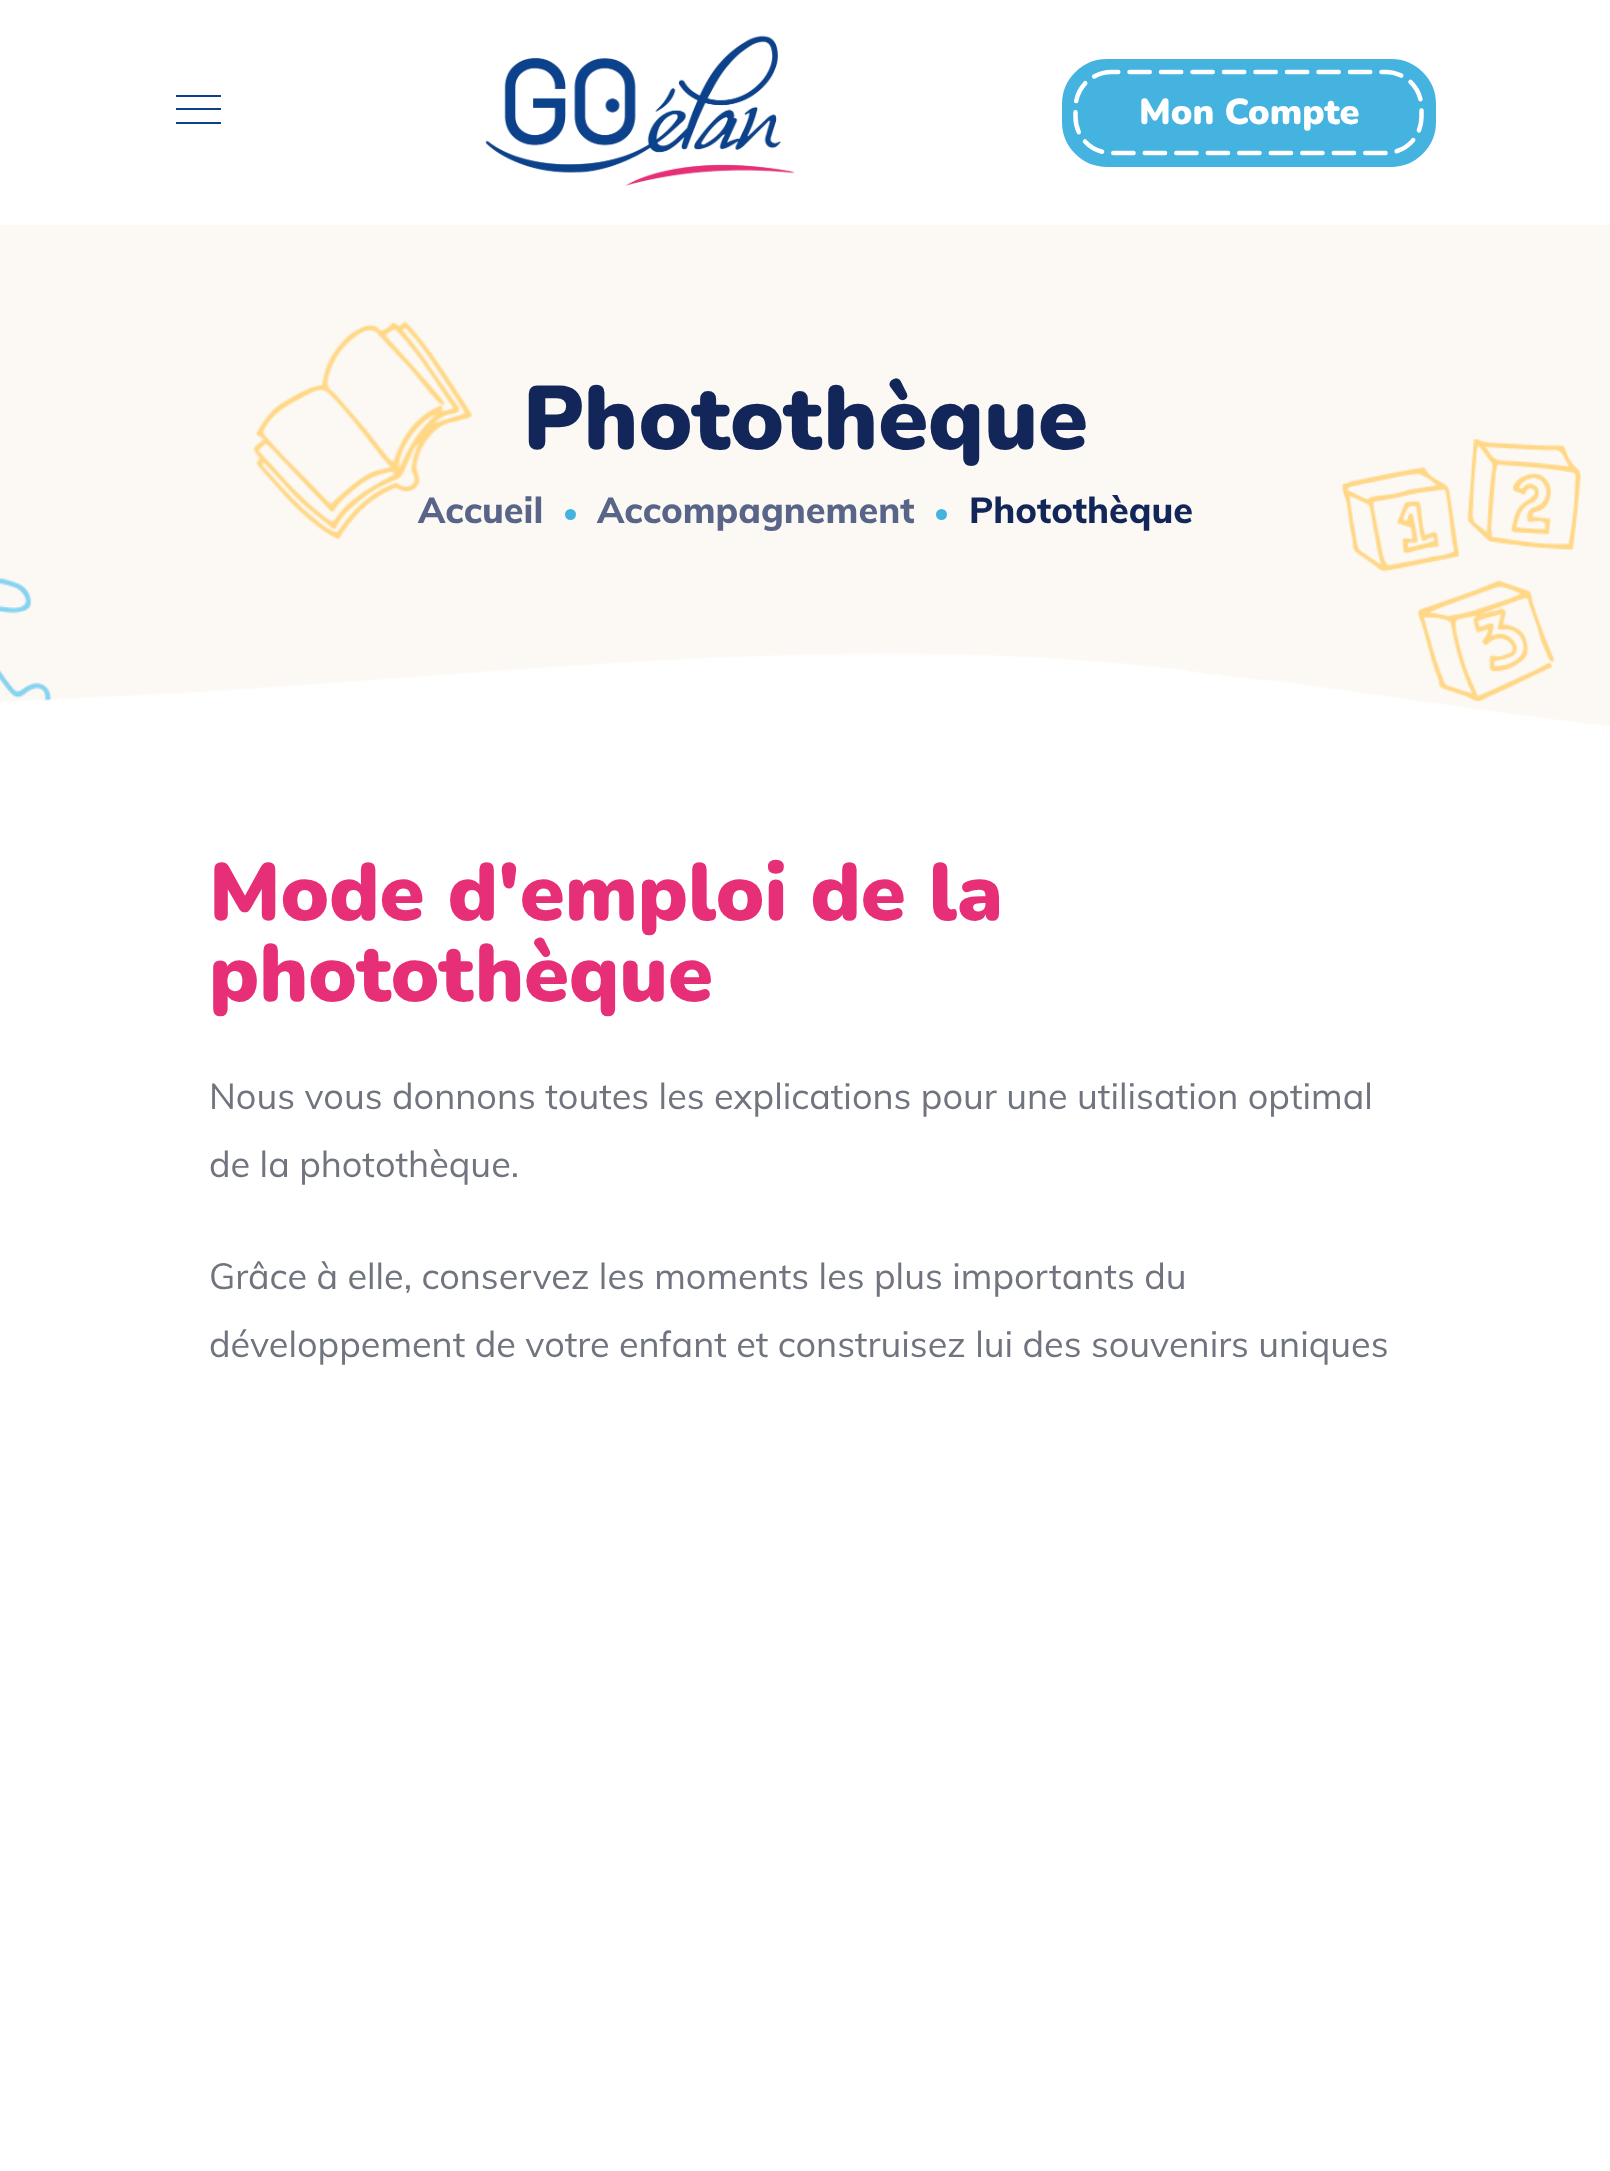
(async () => {
    const canvas = document.querySelector("canvas");
    canvas.width = 1610;
    canvas.height = 2171;
    const context = canvas.getContext("2d");
    context.miterLimit = 4;
    context.fontKerning = "normal";
    function write(s, x, y, font, color) {
        context.font = font;
        context.fillStyle = color;
        context.fillText(s, x, y);
    }
    function block(x, y, w, h, color) {
        context.fillStyle = color;
        context.fillRect(x, y, w, h);
    }
    async function photo(src, x, y, w, h) {
        const img = new Image();
        img.src = src;
        await img.decode();
        context.drawImage(img, x, y, w, h);
    }

    block(0, 0, 1610, 2171, "rgb(255, 255, 255)");
    block(176, 95, 45, 2, "rgb(12, 66, 140)");
    block(176, 108, 45, 2, "rgb(12, 66, 140)");
    block(176, 122, 45, 2, "rgb(12, 66, 140)");
    await photo("media/1.png", 485, 35, 310, 151);
    context.fillStyle = "rgb(69, 179, 223)";
    context.beginPath();
    context.roundRect(1063, 60, 372, 106, 44);
    context.fill();
    context.strokeStyle = "rgb(69, 179, 223)";
    context.lineWidth = 2;
    context.stroke();
    context.beginPath();
    context.moveTo(1111.5, 72);
    context.lineTo(1385.5, 72);
    context.bezierCurveTo(1405.5, 72, 1421.5, 88, 1421.5, 108);
    context.lineTo(1421.5, 117);
    context.bezierCurveTo(1421.5, 137, 1405.5, 153, 1385.5, 153);
    context.lineTo(1111.5, 153);
    context.bezierCurveTo(1091.5, 153, 1075.5, 137, 1075.5, 117);
    context.lineTo(1075.5, 108);
    context.bezierCurveTo(1075.5, 88, 1091.5, 72, 1111.5, 72);
    context.closePath();
    context.strokeStyle = "rgb(255, 255, 255)";
    context.lineWidth = 4.5;
    context.lineCap = "round";
    context.setLineDash([20.25, 11.25]);
    context.lineDashOffset = 2250;
    context.stroke();
    write("Mon Compte", 1139, 124, "900 36px Nunito", "rgb(255, 255, 255)");
    await photo("media/2.png", 0, 225, 1610, 501);
    await photo("media/3.png", 252, 321, 221, 219);
    write("Photothèque", 523, 449, "900 90px Nunito", "rgb(18, 38, 90)");
    write("Accueil", 418, 523, "800 36px Muli", "rgb(88, 101, 136)");
    context.fillStyle = "rgb(69, 179, 223)";
    context.beginPath();
    context.arc(570.5, 514.5, 5.5, 0, Math.PI * 2);
    context.fill();
    write("Accompagnement", 597, 523, "800 36px Muli", "rgb(88, 101, 136)");
    context.fillStyle = "rgb(69, 179, 223)";
    context.beginPath();
    context.arc(941.5, 514.5, 5.5, 0, Math.PI * 2);
    context.fill();
    write("Photothèque", 969, 523, "800 36px Muli", "rgb(18, 38, 90)");
    write("Mode d'emploi de la", 209, 920, "900 81px Nunito", "rgb(231, 47, 119)");
    write("photothèque", 209, 1001, "900 81px Nunito", "rgb(231, 47, 119)");
    write("Nous vous donnons toutes les explications pour une utilisation optimal", 209, 1109, "36px Muli", "rgb(112, 116, 127)");
    write("de la photothèque.", 209, 1177, "36px Muli", "rgb(112, 116, 127)");
    write("Grâce à elle, conservez les moments les plus importants du", 209, 1289, "36px Muli", "rgb(112, 116, 127)");
    write("développement de votre enfant et construisez lui des souvenirs uniques", 209, 1357, "36px Muli", "rgb(112, 116, 127)");
})();
